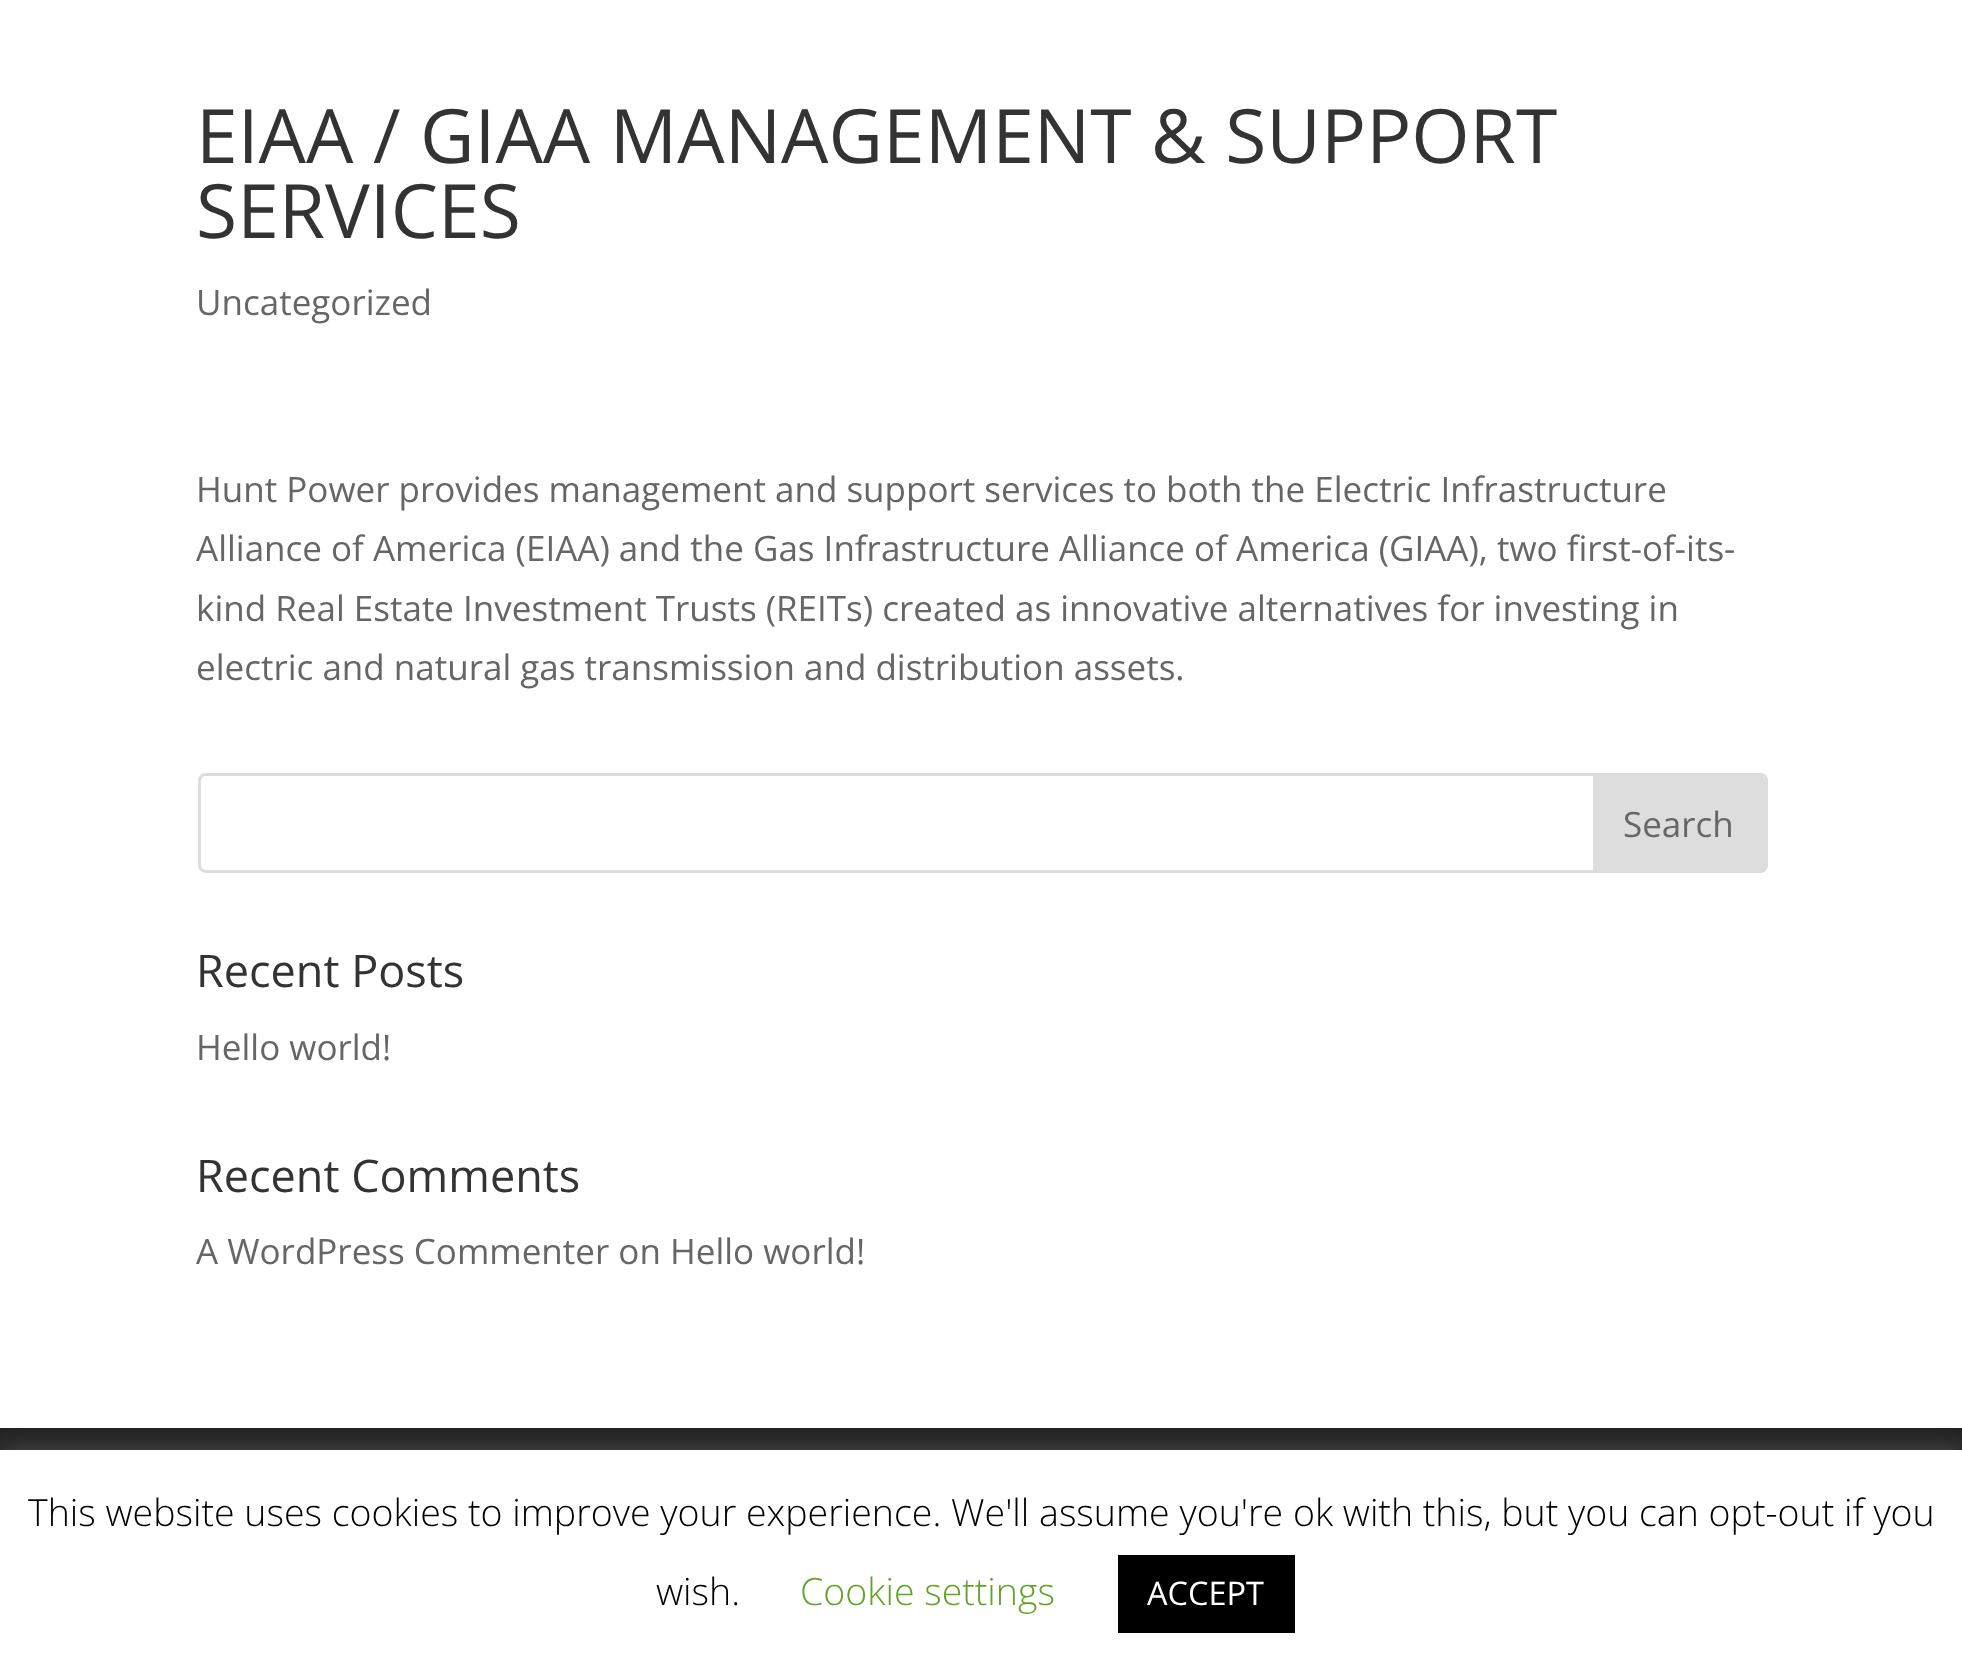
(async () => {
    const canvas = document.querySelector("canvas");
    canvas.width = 1962;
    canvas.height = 1675;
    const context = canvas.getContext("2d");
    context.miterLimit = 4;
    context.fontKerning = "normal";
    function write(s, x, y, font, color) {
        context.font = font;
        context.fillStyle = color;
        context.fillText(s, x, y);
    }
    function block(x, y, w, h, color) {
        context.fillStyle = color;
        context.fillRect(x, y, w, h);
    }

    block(0, 0, 1962, 1675, "rgb(255, 255, 255)");
    write("EIAA / GIAA MANAGEMENT & SUPPORT", 196, 163, "75px Open Sans", "rgb(51, 51, 51)");
    write("SERVICES", 196, 238, "75px Open Sans", "rgb(51, 51, 51)");
    write("Uncategorized", 196, 315, "35px Open Sans", "rgb(102, 102, 102)");
    write("Hunt Power provides management and support services to both the Electric Infrastructure", 196, 502, "35px Open Sans", "rgb(102, 102, 102)");
    write("Alliance of America (EIAA) and the Gas Infrastructure Alliance of America (GIAA), two first-of-its-", 196, 561, "35px Open Sans", "rgb(102, 102, 102)");
    write("kind Real Estate Investment Trusts (REITs) created as innovative alternatives for investing in", 196, 621, "35px Open Sans", "rgb(102, 102, 102)");
    write("electric and natural gas transmission and distribution assets.", 196, 680, "35px Open Sans", "rgb(102, 102, 102)");
    context.beginPath();
    context.roundRect(199.5, 774.5, 1567, 97, 6.5);
    context.strokeStyle = "rgb(221, 221, 221)";
    context.lineWidth = 3;
    context.stroke();
    context.fillStyle = "rgb(221, 221, 221)";
    context.beginPath();
    context.roundRect(1594.5, 774.5, 172, 97, [0, 6.5, 6.5, 0]);
    context.fill();
    context.stroke();
    write("Search", 1623, 837, "35px Open Sans", "rgb(102, 102, 102)");
    write("Recent Posts", 196, 987, "45px Open Sans", "rgb(51, 51, 51)");
    write("Hello world!", 196, 1060, "35px Open Sans", "rgb(102, 102, 102)");
    write("Recent Comments", 196, 1192, "45px Open Sans", "rgb(51, 51, 51)");
    write("A WordPress Commenter on Hello world!", 196, 1264, "35px Open Sans", "rgb(102, 102, 102)");
    block(0, 1428, 1962, 22, "rgb(34, 34, 34)");
    context.fillStyle = "rgba(172, 171, 171, 0.3)";
    context.filter = "blur(12.5px)";
    context.beginPath();
    context.rect(0, 1448, 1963, 225);
    context.fill();
    context.filter = "none";
    block(0, 1450, 1962, 225, "rgb(255, 255, 255)");
    write("This website uses cookies to improve your experience. We'll assume you're ok with this, but you can opt-out if you", 28, 1526, "300 37.5px Open Sans", "rgb(0, 0, 0)");
    write("wish.", 656, 1605, "300 37.5px Open Sans", "rgb(0, 0, 0)");
    write("Cookie settings", 800, 1605, "300 37.5px Open Sans", "rgb(98, 163, 41)");
    block(1118, 1555, 177, 78, "rgb(0, 0, 0)");
    write("ACCEPT", 1147, 1605, "32.5px Open Sans", "rgb(255, 255, 255)");
})();
